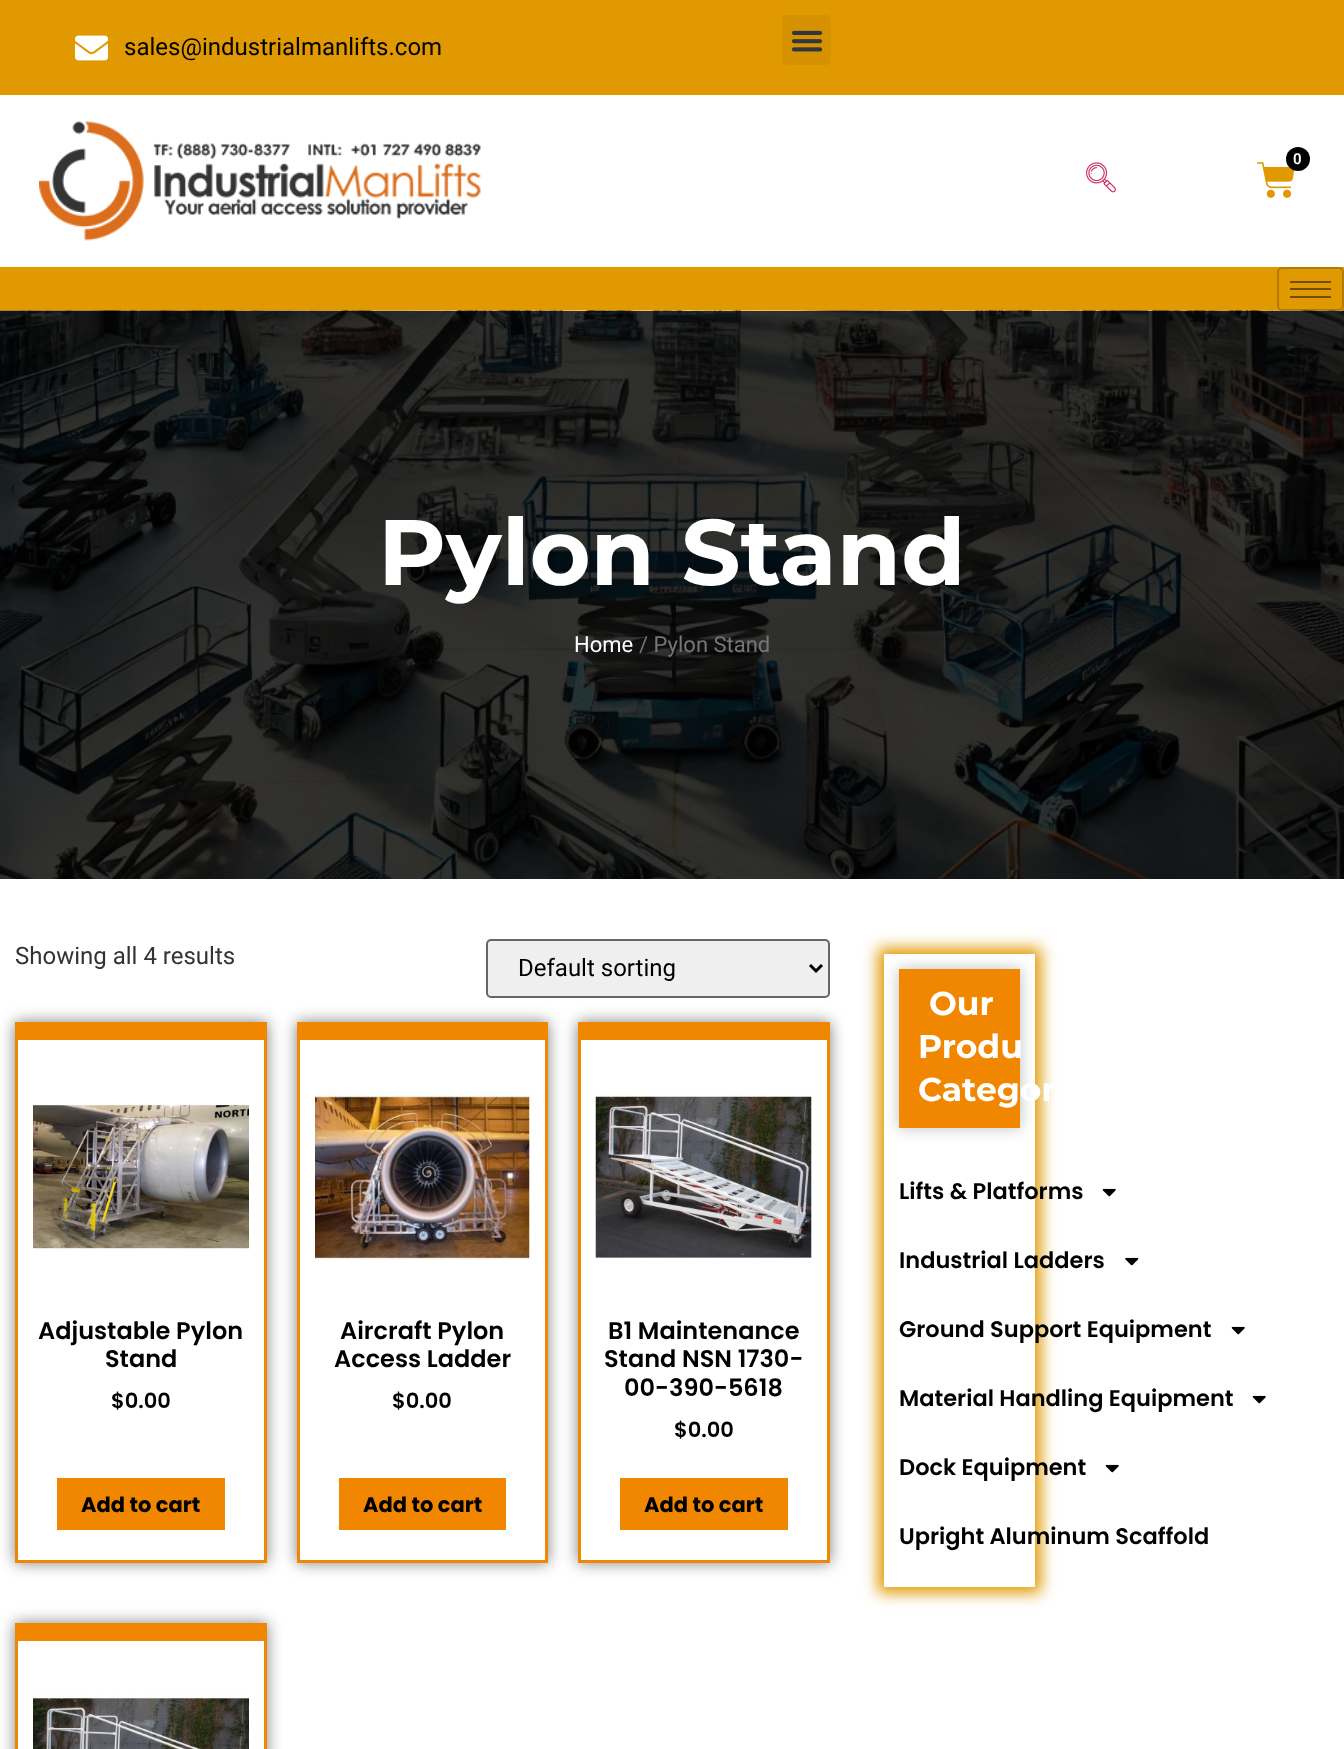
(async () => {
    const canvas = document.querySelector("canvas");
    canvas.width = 1344;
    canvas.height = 1749;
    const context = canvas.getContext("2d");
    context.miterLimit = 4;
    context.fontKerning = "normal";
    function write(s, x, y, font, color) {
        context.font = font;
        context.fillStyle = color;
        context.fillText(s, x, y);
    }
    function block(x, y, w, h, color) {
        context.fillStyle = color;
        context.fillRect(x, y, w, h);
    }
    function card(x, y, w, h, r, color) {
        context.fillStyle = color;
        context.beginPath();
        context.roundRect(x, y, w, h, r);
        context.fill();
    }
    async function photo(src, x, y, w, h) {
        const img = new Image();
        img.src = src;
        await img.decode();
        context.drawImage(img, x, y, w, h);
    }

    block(0, 0, 1344, 1749, "rgb(255, 255, 255)");
    block(0, 0, 1344, 95, "rgb(224, 153, 0)");
    await photo("media/1.png", 75, 35, 33, 26);
    write("sales@industrialmanlifts.com", 124, 55, "24px Roboto", "rgb(0, 0, 0)");
    card(782, 15, 49, 50, 5, "rgb(213, 145, 0)");
    await photo("media/2.png", 791, 30, 32, 22);
    await photo("media/3.png", 39, 121, 442, 120);
    await photo("media/4.png", 1257, 162, 38, 36);
    context.fillStyle = "rgb(0, 0, 0)";
    context.beginPath();
    context.arc(1298, 159, 12, 0, Math.PI * 2);
    context.fill();
    write("0", 1293, 164, "600 15px Roboto", "rgb(255, 255, 255)");
    await photo("media/5.png", 1086, 162, 30, 31);
    block(0, 267, 1344, 44, "rgb(224, 153, 0)");
    await photo("media/6.png", 0, 310, 1344, 569);
    context.beginPath();
    context.roundRect(1278, 268, 65, 42, 4);
    context.strokeStyle = "rgba(0, 0, 0, 0.2)";
    context.lineWidth = 2;
    context.stroke();
    block(1290, 281, 41, 2, "rgb(112, 77, 0)");
    block(1290, 288, 41, 2, "rgb(112, 77, 0)");
    block(1290, 296, 41, 2, "rgb(112, 77, 0)");
    write("Pylon Stand", 378, 585, "bold 93px Montserrat", "rgb(255, 255, 255)");
    write("Home", 574, 652, "22px Roboto", "rgb(255, 255, 255)");
    write("/ Pylon Stand", 639, 652, "22px Roboto", "rgb(118, 118, 118)");
    write("Showing all 4 results", 15, 964, "24px Roboto", "rgb(51, 51, 51)");
    context.fillStyle = "rgb(239, 239, 239)";
    context.beginPath();
    context.roundRect(487, 940, 342, 57, 4);
    context.fill();
    context.strokeStyle = "rgb(102, 102, 102)";
    context.stroke();
    context.beginPath();
    context.moveTo(810, 965);
    context.lineTo(816, 971);
    context.lineTo(822, 965);
    context.strokeStyle = "rgb(0, 0, 0)";
    context.lineWidth = 3;
    context.stroke();
    write("Default sorting", 518, 976, "24px Roboto", "rgb(0, 0, 0)");
    context.save();
    context.beginPath();
    context.moveTo(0, 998);
    context.lineTo(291, 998);
    context.lineTo(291, 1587);
    context.lineTo(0, 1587);
    context.closePath();
    context.moveTo(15, 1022);
    context.lineTo(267, 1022);
    context.lineTo(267, 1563);
    context.lineTo(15, 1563);
    context.closePath();
    context.clip("evenodd");
    context.fillStyle = "rgba(0, 0, 0, 0.5)";
    context.filter = "blur(7.5px)";
    context.beginPath();
    context.rect(15, 1022, 252, 541);
    context.fill();
    context.filter = "none";
    context.restore();
    block(18, 1022, 246, 18, "rgb(241, 135, 0)");
    block(264, 1022, 3, 541, "rgb(241, 135, 0)");
    block(15, 1560, 252, 3, "rgb(241, 135, 0)");
    block(15, 1022, 3, 541, "rgb(241, 135, 0)");
    await photo("media/7.png", 33, 1104, 216, 148);
    write("Adjustable Pylon", 38, 1339, "600 24px Poppins", "rgb(0, 0, 0)");
    write("Stand", 105, 1367, "600 24px Poppins", "rgb(0, 0, 0)");
    write("$0.00", 111, 1408, "600 21px Poppins", "rgb(0, 0, 0)");
    block(57, 1478, 168, 52, "rgb(241, 135, 0)");
    write("Add to cart", 81, 1512, "bold 21px Poppins", "rgb(0, 0, 0)");
    context.save();
    context.beginPath();
    context.moveTo(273, 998);
    context.lineTo(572, 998);
    context.lineTo(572, 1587);
    context.lineTo(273, 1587);
    context.closePath();
    context.moveTo(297, 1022);
    context.lineTo(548, 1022);
    context.lineTo(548, 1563);
    context.lineTo(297, 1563);
    context.closePath();
    context.clip("evenodd");
    context.fillStyle = "rgba(0, 0, 0, 0.5)";
    context.filter = "blur(7.5px)";
    context.beginPath();
    context.rect(297, 1022, 251, 541);
    context.fill();
    context.filter = "none";
    context.restore();
    block(300, 1022, 245, 18, "rgb(241, 135, 0)");
    block(545, 1022, 3, 541, "rgb(241, 135, 0)");
    block(297, 1560, 251, 3, "rgb(241, 135, 0)");
    block(297, 1022, 3, 541, "rgb(241, 135, 0)");
    await photo("media/8.png", 315, 1090, 215, 170);
    write("Aircraft Pylon", 340, 1339, "600 24px Poppins", "rgb(0, 0, 0)");
    write("Access Ladder", 334, 1367, "600 24px Poppins", "rgb(0, 0, 0)");
    write("$0.00", 392, 1408, "600 21px Poppins", "rgb(0, 0, 0)");
    block(339, 1478, 167, 52, "rgb(241, 135, 0)");
    write("Add to cart", 363, 1512, "bold 21px Poppins", "rgb(0, 0, 0)");
    context.save();
    context.beginPath();
    context.moveTo(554, 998);
    context.lineTo(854, 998);
    context.lineTo(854, 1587);
    context.lineTo(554, 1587);
    context.closePath();
    context.moveTo(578, 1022);
    context.lineTo(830, 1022);
    context.lineTo(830, 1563);
    context.lineTo(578, 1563);
    context.closePath();
    context.clip("evenodd");
    context.fillStyle = "rgba(0, 0, 0, 0.5)";
    context.filter = "blur(7.5px)";
    context.beginPath();
    context.rect(578, 1022, 252, 541);
    context.fill();
    context.filter = "none";
    context.restore();
    block(581, 1022, 246, 18, "rgb(241, 135, 0)");
    block(827, 1022, 3, 541, "rgb(241, 135, 0)");
    block(578, 1560, 252, 3, "rgb(241, 135, 0)");
    block(578, 1022, 3, 541, "rgb(241, 135, 0)");
    await photo("media/9.png", 595, 1093, 217, 165);
    write("B1 Maintenance", 608, 1339, "600 24px Poppins", "rgb(0, 0, 0)");
    write("Stand NSN 1730-", 604, 1367, "600 24px Poppins", "rgb(0, 0, 0)");
    write("00-390-5618", 624, 1396, "600 24px Poppins", "rgb(0, 0, 0)");
    write("$0.00", 674, 1437, "600 21px Poppins", "rgb(0, 0, 0)");
    block(620, 1478, 168, 52, "rgb(241, 135, 0)");
    write("Add to cart", 644, 1512, "bold 21px Poppins", "rgb(0, 0, 0)");
    context.save();
    context.beginPath();
    context.moveTo(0, 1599);
    context.lineTo(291, 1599);
    context.lineTo(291, 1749);
    context.lineTo(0, 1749);
    context.closePath();
    context.moveTo(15, 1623);
    context.lineTo(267, 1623);
    context.lineTo(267, 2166);
    context.lineTo(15, 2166);
    context.closePath();
    context.clip("evenodd");
    context.fillStyle = "rgba(0, 0, 0, 0.5)";
    context.filter = "blur(7.5px)";
    context.beginPath();
    context.rect(15, 1623, 252, 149);
    context.fill();
    context.filter = "none";
    context.restore();
    block(18, 1623, 246, 18, "rgb(241, 135, 0)");
    block(264, 1623, 3, 126, "rgb(241, 135, 0)");
    block(15, 1623, 3, 126, "rgb(241, 135, 0)");
    await photo("media/10.png", 33, 1694, 216, 55);
    context.save();
    context.beginPath();
    context.moveTo(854, 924);
    context.lineTo(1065, 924);
    context.lineTo(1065, 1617);
    context.lineTo(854, 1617);
    context.closePath();
    context.moveTo(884, 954);
    context.lineTo(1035, 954);
    context.lineTo(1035, 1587);
    context.lineTo(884, 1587);
    context.closePath();
    context.clip("evenodd");
    context.fillStyle = "rgb(224, 153, 0)";
    context.filter = "blur(7.5px)";
    context.beginPath();
    context.rect(878, 948, 163, 645);
    context.fill();
    context.filter = "none";
    context.restore();
    context.fillStyle = "rgba(0, 0, 0, 0.25)";
    context.filter = "blur(7.5px)";
    context.beginPath();
    context.rect(899, 969, 121, 159);
    context.fill();
    context.filter = "none";
    block(899, 969, 121, 159, "rgb(241, 135, 0)");
    write("Our", 929, 1015, "bold 33px Montserrat", "rgb(255, 255, 255)");
    write("Produ", 918, 1058, "bold 33px Montserrat", "rgb(255, 255, 255)");
    write("Categor", 918, 1101, "bold 33px Montserrat", "rgb(255, 255, 255)");
    write("Lifts & Platforms", 899, 1199, "600 22.5px Poppins", "rgb(0, 0, 0)");
    await photo("media/11.png", 1102, 1188, 14, 9);
    write("Industrial Ladders", 899, 1268, "600 22.5px Poppins", "rgb(0, 0, 0)");
    await photo("media/12.png", 1125, 1257, 14, 9);
    write("Ground Support Equipment", 899, 1337, "600 22.5px Poppins", "rgb(0, 0, 0)");
    await photo("media/11.png", 1231, 1326, 14, 9);
    write("Material Handling Equipment", 899, 1406, "600 22.5px Poppins", "rgb(0, 0, 0)");
    await photo("media/11.png", 1252, 1395, 14, 9);
    write("Dock Equipment", 899, 1475, "600 22.5px Poppins", "rgb(0, 0, 0)");
    await photo("media/11.png", 1105, 1464, 14, 9);
    write("Upright Aluminum Scaffold", 899, 1544, "600 22.5px Poppins", "rgb(0, 0, 0)");
})();
